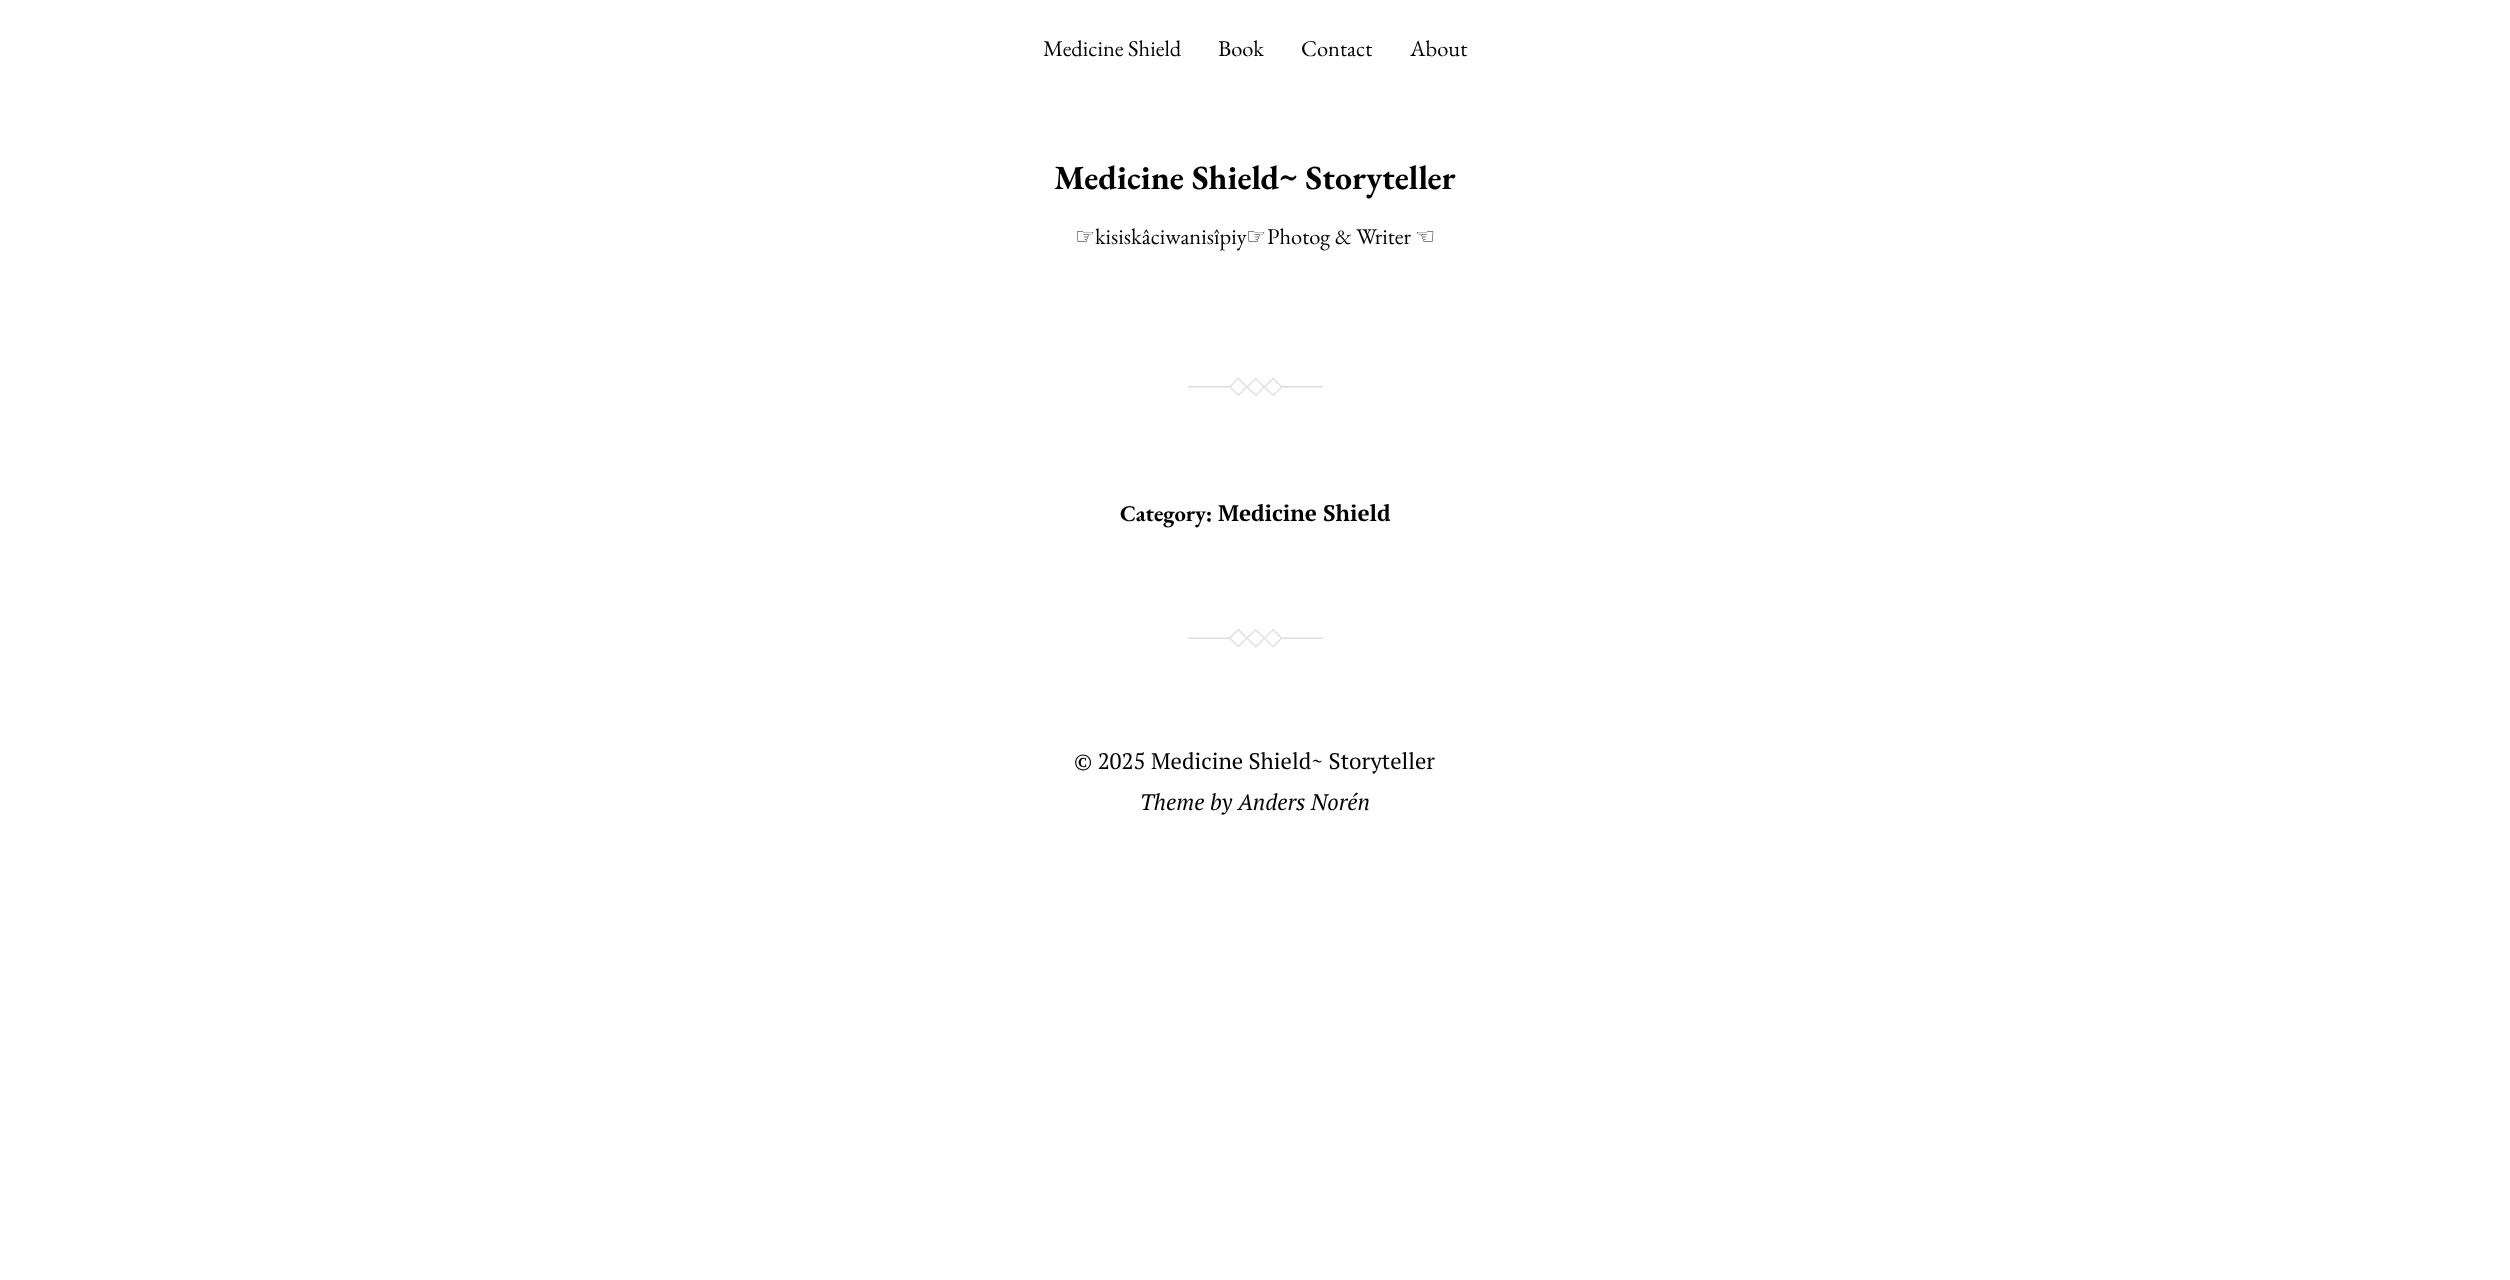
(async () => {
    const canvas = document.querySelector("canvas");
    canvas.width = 2510;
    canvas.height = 1280;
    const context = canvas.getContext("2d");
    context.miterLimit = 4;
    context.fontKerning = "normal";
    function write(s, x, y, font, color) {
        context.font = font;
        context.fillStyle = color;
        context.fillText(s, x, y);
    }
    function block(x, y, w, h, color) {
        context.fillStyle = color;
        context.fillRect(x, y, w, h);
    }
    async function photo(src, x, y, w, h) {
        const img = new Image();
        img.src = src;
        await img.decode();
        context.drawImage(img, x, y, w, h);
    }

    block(0, 0, 2510, 1280, "rgb(255, 255, 255)");
    write("Medicine Shield", 1043, 56, "22.5px EB Garamond", "rgb(0, 0, 0)");
    write("Book", 1218, 56, "22.5px EB Garamond", "rgb(0, 0, 0)");
    write("Contact", 1301, 56, "22.5px EB Garamond", "rgb(0, 0, 0)");
    write("About", 1410, 56, "22.5px EB Garamond", "rgb(0, 0, 0)");
    write("Medicine Shield~ Storyteller", 1054, 189, "bold 33.75px EB Garamond", "rgb(0, 0, 0)");
    write("☞", 1075, 244, "22.5px DejaVu Sans", "rgb(0, 0, 0)");
    write("kisiskâciwanisîpiy", 1095, 244, "22.5px EB Garamond", "rgb(0, 0, 0)");
    write("☞", 1246, 244, "22.5px DejaVu Sans", "rgb(0, 0, 0)");
    write("Photog & Writer", 1267, 244, "22.5px EB Garamond", "rgb(0, 0, 0)");
    write("☜", 1415, 244, "22.5px DejaVu Sans", "rgb(0, 0, 0)");
    await photo("media/1.png", 1188, 377, 135, 19);
    write("Category:", 1120, 521, "bold 22.5px EB Garamond", "rgb(0, 0, 0)");
    write("Medicine Shield", 1218, 521, "bold 22.5px PT Serif", "rgb(0, 0, 0)");
    await photo("media/2.png", 1188, 628, 135, 20);
    write("© 2025 Medicine Shield~ Storyteller", 1074, 769, "22.5px PT Serif", "rgb(0, 0, 0)");
    write("Theme by", 1140, 810, "italic 22.5px PT Serif", "rgb(0, 0, 0)");
    write("Anders Norén", 1238, 810, "italic 22.5px PT Serif", "rgb(0, 0, 0)");
})();
